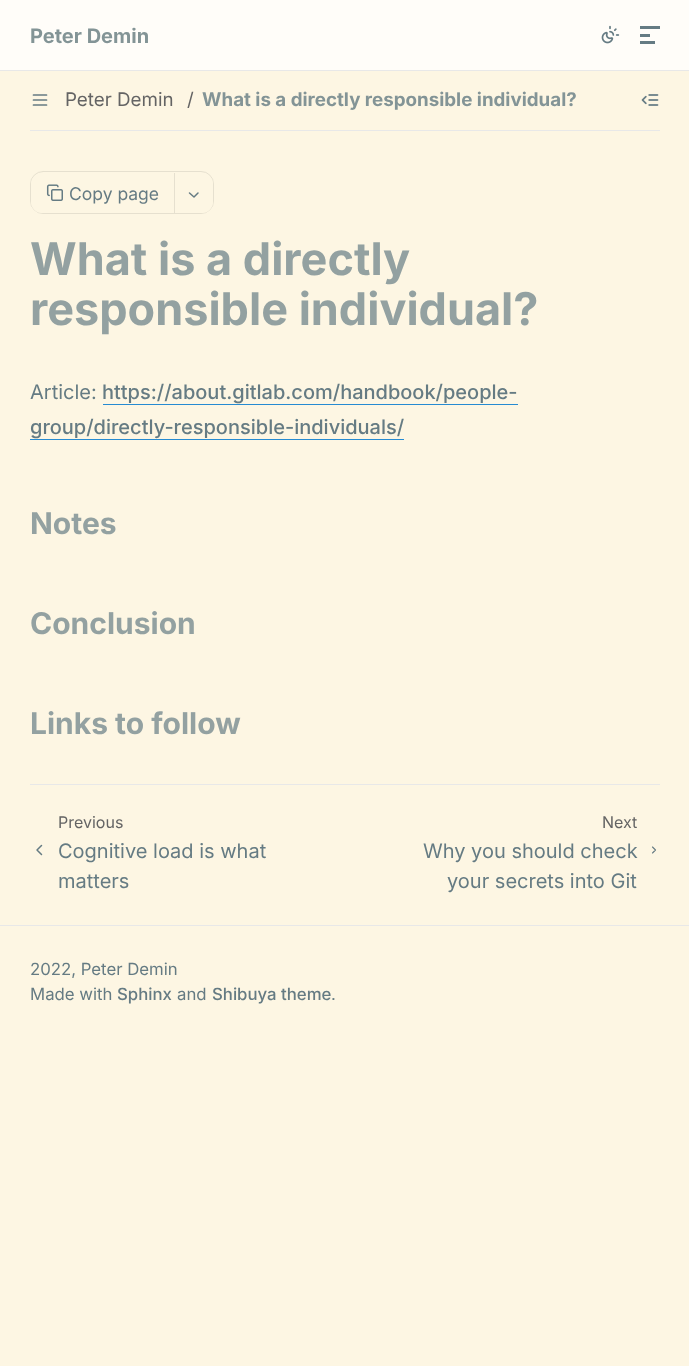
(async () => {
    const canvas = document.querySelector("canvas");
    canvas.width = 689;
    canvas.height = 1366;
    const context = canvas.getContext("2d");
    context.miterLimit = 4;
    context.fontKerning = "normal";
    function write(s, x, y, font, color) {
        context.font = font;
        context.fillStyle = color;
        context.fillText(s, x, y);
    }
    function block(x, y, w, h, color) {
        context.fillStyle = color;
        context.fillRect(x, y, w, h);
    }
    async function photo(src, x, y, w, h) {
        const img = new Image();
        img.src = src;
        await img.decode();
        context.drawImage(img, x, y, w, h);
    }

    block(0, 0, 689, 1366, "rgb(253, 246, 227)");
    block(0, 70, 689, 1, "rgb(232, 232, 232)");
    block(0, 0, 689, 70, "rgb(255, 253, 249)");
    write("Peter Demin", 30, 43, "bold 20px Inter", "rgb(131, 148, 150)");
    await photo("media/1.png", 601, 25, 19, 19);
    block(640, 26, 20, 3, "rgb(101, 123, 131)");
    block(640, 34, 10, 3, "rgb(101, 123, 131)");
    block(640, 41, 15, 3, "rgb(101, 123, 131)");
    block(30, 130, 630, 1, "rgb(232, 232, 232)");
    context.beginPath();
    context.moveTo(33.5, 100);
    context.lineTo(46.5, 100);
    context.moveTo(33.5, 95);
    context.lineTo(46.5, 95);
    context.moveTo(33.5, 105);
    context.lineTo(46.5, 105);
    context.strokeStyle = "rgb(101, 123, 131)";
    context.lineWidth = 1.7;
    context.lineCap = "round";
    context.lineJoin = "round";
    context.stroke();
    write("Peter Demin", 65, 106, "18.75px Inter", "rgb(100, 100, 100)");
    write("/", 187, 106, "18.75px Inter", "rgb(100, 100, 100)");
    write("What is a directly responsible individual?", 202, 106, "bold 18.75px Inter", "rgb(131, 148, 150)");
    await photo("media/2.png", 641, 94, 18, 12);
    context.beginPath();
    context.roundRect(30.5, 171.5, 183, 42, 12.5);
    context.strokeStyle = "rgb(230, 224, 207)";
    context.lineWidth = 1;
    context.lineJoin = "miter";
    context.stroke();
    context.fillStyle = "rgb(253, 246, 227)";
    context.beginPath();
    context.roundRect(31, 173, 143, 40, [11, 0, 0, 11]);
    context.fill();
    await photo("media/3.png", 46, 184, 17, 17);
    write("Copy page", 69, 200, "17.5px Inter", "rgb(101, 123, 131)");
    context.fillStyle = "rgb(253, 246, 227)";
    context.beginPath();
    context.roundRect(174, 173, 39, 40, [0, 11, 11, 0]);
    context.fill();
    block(174, 173, 1, 40, "rgb(230, 224, 207)");
    context.beginPath();
    context.moveTo(189.5, 193);
    context.lineTo(194, 197);
    context.lineTo(198, 193);
    context.strokeStyle = "rgb(101, 123, 131)";
    context.lineWidth = 1.5;
    context.lineJoin = "round";
    context.stroke();
    write("What is a directly", 30, 275, "bold 45px Inter", "rgb(147, 161, 161)");
    write("responsible individual?", 30, 325, "bold 45px Inter", "rgb(147, 161, 161)");
    write("Article:", 30, 399, "20px Inter", "rgb(101, 123, 131)");
    write("https://about.gitlab.com/handbook/people-", 102, 399, "500 20px Inter", "rgb(101, 123, 131)");
    block(103, 404, 415, 1, "rgb(38, 139, 210)");
    write("group/directly-responsible-individuals/", 30, 434, "500 20px Inter", "rgb(101, 123, 131)");
    block(30, 439, 374, 1, "rgb(38, 139, 210)");
    write("Notes", 30, 534, "bold 30px Inter", "rgb(147, 161, 161)");
    write("Conclusion", 30, 634, "bold 30px Inter", "rgb(147, 161, 161)");
    write("Links to follow", 30, 734, "bold 30px Inter", "rgb(147, 161, 161)");
    block(30, 784, 630, 1, "rgb(232, 232, 232)");
    context.beginPath();
    context.moveTo(41.5, 854.5);
    context.lineTo(37, 850);
    context.lineTo(41.5, 845.5);
    context.stroke();
    write("Previous", 58, 828, "16px Inter", "rgb(100, 100, 100)");
    write("Cognitive load is what", 58, 858, "20px Inter", "rgb(101, 123, 131)");
    write("matters", 58, 888, "20px Inter", "rgb(101, 123, 131)");
    write("Next", 602, 828, "16px Inter", "rgb(100, 100, 100)");
    write("Why you should check", 423, 858, "20px Inter", "rgb(101, 123, 131)");
    write("your secrets into Git", 447, 888, "20px Inter", "rgb(101, 123, 131)");
    context.beginPath();
    context.moveTo(652.5, 853);
    context.lineTo(655.5, 850);
    context.lineTo(652.5, 847);
    context.lineWidth = 1.1;
    context.stroke();
    block(0, 925, 689, 1, "rgb(232, 232, 232)");
    write("2022, Peter Demin", 30, 975, "16.75px Inter", "rgb(101, 123, 131)");
    write("Made with", 30, 1000, "16.75px Inter", "rgb(101, 123, 131)");
    write("Sphinx", 117, 1000, "500 16.75px Inter", "rgb(101, 123, 131)");
    write("and", 177, 1000, "16.75px Inter", "rgb(101, 123, 131)");
    write("Shibuya theme", 212, 1000, "500 16.75px Inter", "rgb(101, 123, 131)");
    write(".", 331, 1000, "16.75px Inter", "rgb(101, 123, 131)");
})();
